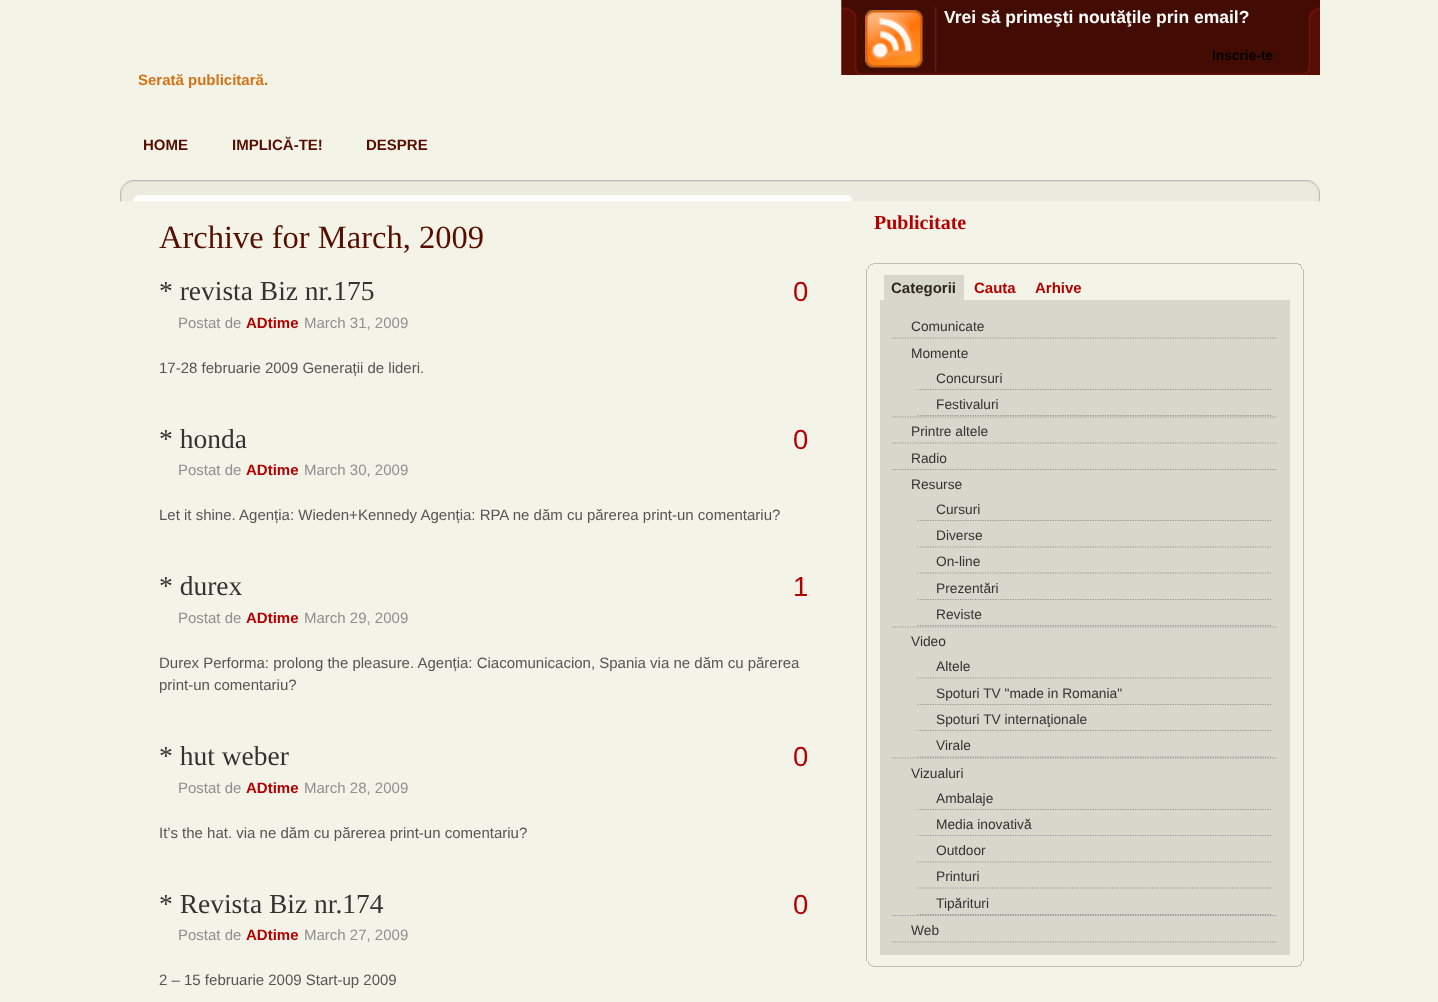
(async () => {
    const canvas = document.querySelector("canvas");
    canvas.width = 1438;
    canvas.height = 1002;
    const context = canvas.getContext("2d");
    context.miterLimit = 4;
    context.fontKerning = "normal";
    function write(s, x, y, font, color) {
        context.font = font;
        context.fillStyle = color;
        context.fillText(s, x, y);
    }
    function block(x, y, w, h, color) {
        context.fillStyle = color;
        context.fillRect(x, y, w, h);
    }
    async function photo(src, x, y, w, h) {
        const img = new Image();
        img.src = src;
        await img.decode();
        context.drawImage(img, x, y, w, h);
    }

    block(0, 0, 1438, 1002, "rgb(244, 243, 232)");
    await photo("media/1.png", 841, 0, 479, 75);
    await photo("media/2.png", 865, 10, 58, 58);
    write("Vrei să primeşti noutăţile prin email?", 944, 23, "bold 17.5px Liberation Sans", "rgb(255, 255, 255)");
    write("Inscrie-te", 1212, 60, "bold 13.75px Liberation Sans", "rgb(0, 0, 0)");
    write("Serată publicitară.", 138, 85, "bold 15px Liberation Sans", "rgb(210, 115, 24)");
    write("HOME", 143, 150, "bold 15px Liberation Sans", "rgb(87, 14, 0)");
    write("IMPLICĂ-TE!", 232, 150, "bold 15px Liberation Sans", "rgb(87, 14, 0)");
    write("DESPRE", 366, 150, "bold 15px Liberation Sans", "rgb(87, 14, 0)");
    await photo("media/3.png", 120, 180, 1200, 22);
    write("Archive for March, 2009", 159, 248, "32.5px Liberation Serif", "rgb(87, 14, 0)");
    write("* revista Biz nr.175", 159, 300, "27.5px Liberation Serif", "rgb(51, 51, 51)");
    write("0", 793, 301, "27.5px Liberation Sans", "rgb(179, 0, 0)");
    write("Postat de", 178, 328, "15px Liberation Sans", "rgb(142, 143, 145)");
    write("ADtime", 246, 328, "bold 15px Liberation Sans", "rgb(179, 0, 0)");
    write("March 31, 2009", 304, 328, "15px Liberation Sans", "rgb(142, 143, 145)");
    write("17-28 februarie 2009 Generații de lideri.", 159, 373, "15px Liberation Sans", "rgb(85, 85, 85)");
    write("* honda", 159, 448, "27.5px Liberation Serif", "rgb(51, 51, 51)");
    write("0", 793, 449, "27.5px Liberation Sans", "rgb(179, 0, 0)");
    write("Postat de", 178, 475, "15px Liberation Sans", "rgb(142, 143, 145)");
    write("ADtime", 246, 475, "bold 15px Liberation Sans", "rgb(179, 0, 0)");
    write("March 30, 2009", 304, 475, "15px Liberation Sans", "rgb(142, 143, 145)");
    write("Let it shine. Agenția: Wieden+Kennedy Agenția: RPA ne dăm cu părerea print-un comentariu?", 159, 520, "15px Liberation Sans", "rgb(85, 85, 85)");
    write("* durex", 159, 595, "27.5px Liberation Serif", "rgb(51, 51, 51)");
    write("1", 793, 596, "27.5px Liberation Sans", "rgb(179, 0, 0)");
    write("Postat de", 178, 623, "15px Liberation Sans", "rgb(142, 143, 145)");
    write("ADtime", 246, 623, "bold 15px Liberation Sans", "rgb(179, 0, 0)");
    write("March 29, 2009", 304, 623, "15px Liberation Sans", "rgb(142, 143, 145)");
    write("Durex Performa: prolong the pleasure. Agenția: Ciacomunicacion, Spania via ne dăm cu părerea", 159, 668, "15px Liberation Sans", "rgb(85, 85, 85)");
    write("print-un comentariu?", 159, 690, "15px Liberation Sans", "rgb(85, 85, 85)");
    write("* hut weber", 159, 765, "27.5px Liberation Serif", "rgb(51, 51, 51)");
    write("0", 793, 766, "27.5px Liberation Sans", "rgb(179, 0, 0)");
    write("Postat de", 178, 793, "15px Liberation Sans", "rgb(142, 143, 145)");
    write("ADtime", 246, 793, "bold 15px Liberation Sans", "rgb(179, 0, 0)");
    write("March 28, 2009", 304, 793, "15px Liberation Sans", "rgb(142, 143, 145)");
    write("It’s the hat. via ne dăm cu părerea print-un comentariu?", 159, 838, "15px Liberation Sans", "rgb(85, 85, 85)");
    write("* Revista Biz nr.174", 159, 913, "27.5px Liberation Serif", "rgb(51, 51, 51)");
    write("0", 793, 914, "27.5px Liberation Sans", "rgb(179, 0, 0)");
    write("Postat de", 178, 940, "15px Liberation Sans", "rgb(142, 143, 145)");
    write("ADtime", 246, 940, "bold 15px Liberation Sans", "rgb(179, 0, 0)");
    write("March 27, 2009", 304, 940, "15px Liberation Sans", "rgb(142, 143, 145)");
    write("2 – 15 februarie 2009 Start-up 2009", 159, 985, "15px Liberation Sans", "rgb(85, 85, 85)");
    write("Publicitate", 874, 229, "bold 20px Liberation Serif", "rgb(179, 0, 0)");
    block(873, 263, 425, 1, "rgb(189, 188, 182)");
    block(1298, 264, 3, 1, "rgb(189, 188, 182)");
    block(870, 264, 3, 1, "rgb(189, 188, 182)");
    block(1300, 265, 1, 1, "rgb(189, 188, 182)");
    block(869, 265, 1, 1, "rgb(189, 188, 182)");
    block(1301, 266, 1, 3, "rgb(189, 188, 182)");
    block(868, 266, 1, 3, "rgb(189, 188, 182)");
    block(1303, 269, 1, 692, "rgb(189, 188, 182)");
    block(866, 269, 1, 692, "rgb(189, 188, 182)");
    block(884, 275, 80, 25, "rgb(216, 215, 204)");
    write("Categorii", 891, 293, "bold 15px Liberation Sans", "rgb(48, 38, 30)");
    write("Cauta", 974, 293, "bold 15px Liberation Sans", "rgb(179, 0, 0)");
    write("Arhive", 1035, 293, "bold 15px Liberation Sans", "rgb(179, 0, 0)");
    block(880, 300, 410, 655, "rgb(216, 215, 204)");
    context.beginPath();
    context.moveTo(892.5, 338);
    context.lineTo(1277.5, 338);
    context.strokeStyle = "rgb(149, 149, 149)";
    context.lineWidth = 1.2;
    context.setLineDash([1.25, 1.25]);
    context.stroke();
    write("Comunicate", 911, 331, "13.75px Liberation Sans", "rgb(51, 51, 51)");
    context.beginPath();
    context.moveTo(892.5, 417);
    context.lineTo(1277.5, 417);
    context.stroke();
    write("Momente", 911, 358, "13.75px Liberation Sans", "rgb(51, 51, 51)");
    context.beginPath();
    context.moveTo(917.5, 389.5);
    context.lineTo(1271, 389.5);
    context.stroke();
    write("Concursuri", 936, 383, "13.75px Liberation Sans", "rgb(51, 51, 51)");
    context.beginPath();
    context.moveTo(917.5, 415.5);
    context.lineTo(1271, 415.5);
    context.stroke();
    write("Festivaluri", 936, 409, "13.75px Liberation Sans", "rgb(51, 51, 51)");
    context.beginPath();
    context.moveTo(892.5, 443);
    context.lineTo(1277.5, 443);
    context.stroke();
    write("Printre altele", 911, 436, "13.75px Liberation Sans", "rgb(51, 51, 51)");
    context.beginPath();
    context.moveTo(892.5, 469.5);
    context.lineTo(1277.5, 469.5);
    context.stroke();
    write("Radio", 911, 463, "13.75px Liberation Sans", "rgb(51, 51, 51)");
    context.beginPath();
    context.moveTo(892.5, 627);
    context.lineTo(1277.5, 627);
    context.stroke();
    write("Resurse", 911, 489, "13.75px Liberation Sans", "rgb(51, 51, 51)");
    context.beginPath();
    context.moveTo(917.5, 520.5);
    context.lineTo(1271, 520.5);
    context.stroke();
    write("Cursuri", 936, 514, "13.75px Liberation Sans", "rgb(51, 51, 51)");
    context.beginPath();
    context.moveTo(917.5, 547);
    context.lineTo(1271, 547);
    context.stroke();
    write("Diverse", 936, 540, "13.75px Liberation Sans", "rgb(51, 51, 51)");
    context.beginPath();
    context.moveTo(917.5, 573);
    context.lineTo(1271, 573);
    context.stroke();
    write("On-line", 936, 566, "13.75px Liberation Sans", "rgb(51, 51, 51)");
    context.beginPath();
    context.moveTo(917.5, 599.5);
    context.lineTo(1271, 599.5);
    context.stroke();
    write("Prezentări", 936, 593, "13.75px Liberation Sans", "rgb(51, 51, 51)");
    context.beginPath();
    context.moveTo(917.5, 625.5);
    context.lineTo(1271, 625.5);
    context.stroke();
    write("Reviste", 936, 619, "13.75px Liberation Sans", "rgb(51, 51, 51)");
    context.beginPath();
    context.moveTo(892.5, 758);
    context.lineTo(1277.5, 758);
    context.stroke();
    write("Video", 911, 646, "13.75px Liberation Sans", "rgb(51, 51, 51)");
    context.beginPath();
    context.moveTo(917.5, 678);
    context.lineTo(1271, 678);
    context.stroke();
    write("Altele", 936, 671, "13.75px Liberation Sans", "rgb(51, 51, 51)");
    context.beginPath();
    context.moveTo(917.5, 704.5);
    context.lineTo(1271, 704.5);
    context.stroke();
    write("Spoturi TV \"made in Romania\"", 936, 698, "13.75px Liberation Sans", "rgb(51, 51, 51)");
    context.beginPath();
    context.moveTo(917.5, 730.5);
    context.lineTo(1271, 730.5);
    context.stroke();
    write("Spoturi TV internaţionale", 936, 724, "13.75px Liberation Sans", "rgb(51, 51, 51)");
    context.beginPath();
    context.moveTo(917.5, 757);
    context.lineTo(1271, 757);
    context.stroke();
    write("Virale", 936, 750, "13.75px Liberation Sans", "rgb(51, 51, 51)");
    context.beginPath();
    context.moveTo(892.5, 915.5);
    context.lineTo(1277.5, 915.5);
    context.stroke();
    write("Vizualuri", 911, 778, "13.75px Liberation Sans", "rgb(51, 51, 51)");
    context.beginPath();
    context.moveTo(917.5, 809.5);
    context.lineTo(1271, 809.5);
    context.stroke();
    write("Ambalaje", 936, 803, "13.75px Liberation Sans", "rgb(51, 51, 51)");
    context.beginPath();
    context.moveTo(917.5, 835.5);
    context.lineTo(1271, 835.5);
    context.stroke();
    write("Media inovativă", 936, 829, "13.75px Liberation Sans", "rgb(51, 51, 51)");
    context.beginPath();
    context.moveTo(917.5, 862);
    context.lineTo(1271, 862);
    context.stroke();
    write("Outdoor", 936, 855, "13.75px Liberation Sans", "rgb(51, 51, 51)");
    context.beginPath();
    context.moveTo(917.5, 888);
    context.lineTo(1271, 888);
    context.stroke();
    write("Printuri", 936, 881, "13.75px Liberation Sans", "rgb(51, 51, 51)");
    context.beginPath();
    context.moveTo(917.5, 914.5);
    context.lineTo(1271, 914.5);
    context.stroke();
    write("Tipărituri", 936, 908, "13.75px Liberation Sans", "rgb(51, 51, 51)");
    context.beginPath();
    context.moveTo(892.5, 942);
    context.lineTo(1277.5, 942);
    context.stroke();
    write("Web", 911, 935, "13.75px Liberation Sans", "rgb(51, 51, 51)");
    block(1301, 961, 1, 3, "rgb(189, 188, 182)");
    block(868, 961, 1, 3, "rgb(189, 188, 182)");
    block(1300, 964, 1, 1, "rgb(189, 188, 182)");
    block(869, 964, 1, 1, "rgb(189, 188, 182)");
    block(1298, 965, 3, 1, "rgb(189, 188, 182)");
    block(870, 965, 3, 1, "rgb(189, 188, 182)");
    block(873, 966, 425, 1, "rgb(189, 188, 182)");
})();
